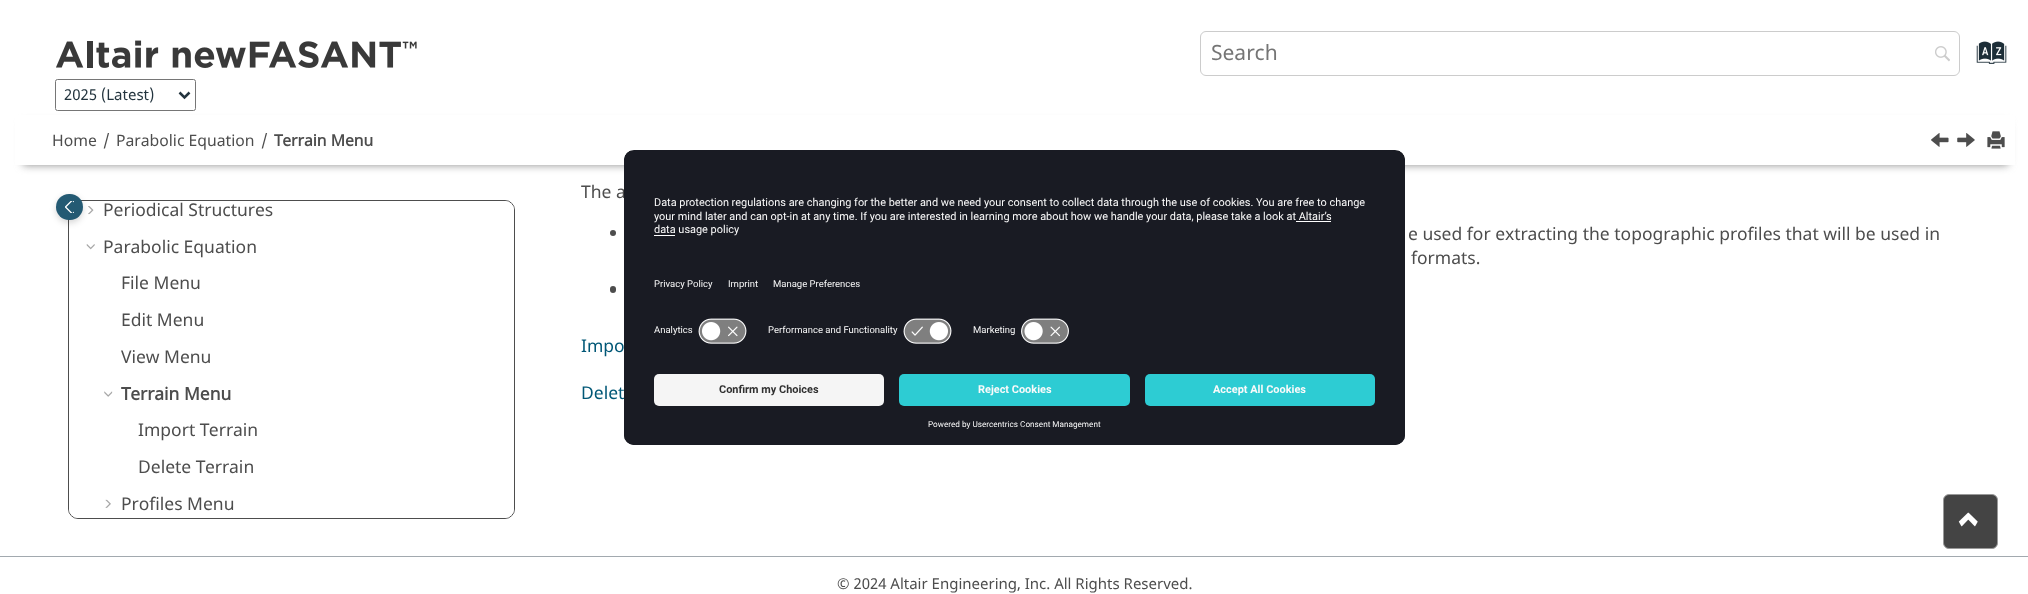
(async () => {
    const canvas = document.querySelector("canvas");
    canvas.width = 2028;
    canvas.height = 594;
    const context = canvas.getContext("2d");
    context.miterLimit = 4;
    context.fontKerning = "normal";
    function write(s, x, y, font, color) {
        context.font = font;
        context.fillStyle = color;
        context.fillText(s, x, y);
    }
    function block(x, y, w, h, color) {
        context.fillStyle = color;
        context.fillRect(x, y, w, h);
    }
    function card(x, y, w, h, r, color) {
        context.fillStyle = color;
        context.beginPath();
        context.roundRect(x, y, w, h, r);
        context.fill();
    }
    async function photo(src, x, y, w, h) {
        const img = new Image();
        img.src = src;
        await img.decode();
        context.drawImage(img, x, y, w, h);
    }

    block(0, 0, 2028, 594, "rgb(255, 255, 255)");
    context.beginPath();
    context.roundRect(1200.5, 31.5, 759, 44, 5.5);
    context.strokeStyle = "rgb(204, 204, 204)";
    context.stroke();
    write("Search", 1211, 60, "21px Noto Sans", "rgb(117, 117, 117)");
    await photo("media/1.png", 1935, 46, 15, 16);
    await photo("media/2.png", 1976, 41, 31, 23);
    await photo("media/3.png", 56, 40, 361, 28);
    context.fillStyle = "rgb(138, 138, 138)";
    context.filter = "blur(4px)";
    context.beginPath();
    context.rect(23, 123, 1985, 42);
    context.fill();
    context.filter = "none";
    context.beginPath();
    context.roundRect(55.5, 79.5, 140, 31, 2);
    context.strokeStyle = "rgb(118, 118, 118)";
    context.stroke();
    context.beginPath();
    context.moveTo(179.5, 92.5);
    context.lineTo(184.5, 97.5);
    context.lineTo(189.5, 92.5);
    context.strokeStyle = "rgb(35, 52, 62)";
    context.lineWidth = 2.5;
    context.stroke();
    write("2025 (Latest)", 64, 100, "15px Noto Sans", "rgb(35, 52, 62)");
    block(15, 115, 2000, 50, "rgb(255, 255, 255)");
    write("Home", 52, 146, "15.75px Noto Sans", "rgb(77, 77, 77)");
    write("/", 103, 146, "15.75px Noto Sans", "rgb(77, 77, 77)");
    write("Parabolic Equation", 116, 146, "15.75px Noto Sans", "rgb(77, 77, 77)");
    write("/", 261, 146, "15.75px Noto Sans", "rgb(77, 77, 77)");
    write("Terrain Menu", 274, 146, "bold 15.75px Noto Sans", "rgb(77, 77, 77)");
    await photo("media/4.png", 1931, 133, 18, 14);
    await photo("media/5.png", 1957, 133, 18, 14);
    await photo("media/6.png", 1987, 131, 18, 18);
    context.beginPath();
    context.roundRect(68.5, 200.5, 446, 318, 9.5);
    context.strokeStyle = "rgb(77, 77, 77)";
    context.lineWidth = 1;
    context.stroke();
    card(69, 201, 445, 317, 9, "rgb(255, 255, 255)");
    await photo("media/7.png", 88, 206, 6, 9);
    write("Periodical Structures", 103, 216, "17.5px Noto Sans", "rgb(77, 77, 77)");
    await photo("media/8.png", 86, 244, 9, 6);
    write("Parabolic Equation", 103, 253, "17.5px Noto Sans", "rgb(77, 77, 77)");
    write("File Menu", 121, 289, "17.5px Noto Sans", "rgb(77, 77, 77)");
    write("Edit Menu", 121, 326, "17.5px Noto Sans", "rgb(77, 77, 77)");
    write("View Menu", 121, 363, "17.5px Noto Sans", "rgb(77, 77, 77)");
    await photo("media/9.png", 104, 391, 9, 6);
    write("Terrain Menu", 121, 400, "bold 17.5px Noto Sans", "rgb(77, 77, 77)");
    write("Import Terrain", 138, 436, "17.5px Noto Sans", "rgb(77, 77, 77)");
    write("Delete Terrain", 138, 473, "17.5px Noto Sans", "rgb(77, 77, 77)");
    await photo("media/10.png", 105, 499, 6, 9);
    write("Profiles Menu", 121, 510, "17.5px Noto Sans", "rgb(77, 77, 77)");
    context.fillStyle = "rgba(0, 0, 0, 0.16)";
    context.filter = "blur(3px)";
    context.beginPath();
    context.roundRect(56, 196, 27, 27, 13.5);
    context.fill();
    context.filter = "none";
    card(56, 194, 27, 26, 13, "rgb(36, 90, 115)");
    context.save();
    context.beginPath();
    context.rect(65, 201, 9, 12);
    context.clip();
    context.beginPath();
    context.moveTo(72.5, 200);
    context.lineTo(79.5, 207);
    context.lineTo(72.5, 214);
    context.lineTo(65.5, 207);
    context.closePath();
    context.strokeStyle = "rgb(255, 255, 255)";
    context.lineWidth = 1.3;
    context.stroke();
    context.restore();
    write("The a", 581, 198, "17.5px Noto Sans", "rgb(77, 77, 77)");
    context.beginPath();
    context.arc(613, 233, 3, 0, Math.PI * 2);
    context.fill();
    write("e used for extracting the topographic profiles that will be used in", 1408, 240, "17.5px Noto Sans", "rgb(77, 77, 77)");
    write("formats.", 1411, 264, "17.5px Noto Sans", "rgb(77, 77, 77)");
    card(610, 286, 6, 7, 3, "rgb(77, 77, 77)");
    write("Impo", 581, 352, "17.5px Noto Sans", "rgb(0, 87, 118)");
    write("Delet", 581, 399, "17.5px Noto Sans", "rgb(0, 87, 118)");
    card(624, 150, 781, 295, 10, "rgb(25, 27, 35)");
    context.save();
    context.beginPath();
    context.roundRect(624, 150, 781, 295, 10);
    context.clip();
    context.beginPath();
    context.roundRect(624, 150, 781, 214, [10, 10, 0, 0]);
    context.clip();
    block(624, 151, 781, 213, "rgb(25, 27, 35)");
    block(624, 151, 781, 163, "rgb(25, 27, 35)");
    context.restore();
    write("Data protection regulations are changing for the better and we need your consent to collect data through the use of cookies. You are free to change", 654, 206, "10.95px Roboto", "rgb(250, 250, 250)");
    write("your mind later and can opt-in at any time. If you are interested in learning more about how we handle your data, please take a look at Altair’s", 654, 220, "10.95px Roboto", "rgb(250, 250, 250)");
    block(1296, 221, 35, 1, "rgb(255, 255, 255)");
    block(654, 235, 21, 1, "rgb(255, 255, 255)");
    write("data usage policy", 654, 233, "10.95px Roboto", "rgb(250, 250, 250)");
    write("Privacy Policy", 654, 287, "9.5px Roboto", "rgb(250, 250, 250)");
    write("Imprint", 728, 287, "9.5px Roboto", "rgb(250, 250, 250)");
    write("Manage Preferences", 773, 287, "9.5px Roboto", "rgb(250, 250, 250)");
    write("Analytics", 654, 333, "9.5px Roboto", "rgb(250, 250, 250)");
    await photo("media/11.png", 698, 318, 49, 26);
    write("Performance and Functionality", 768, 333, "9.5px Roboto", "rgb(250, 250, 250)");
    await photo("media/12.png", 903, 318, 49, 26);
    write("Marketing", 973, 333, "9.5px Roboto", "rgb(250, 250, 250)");
    await photo("media/13.png", 1021, 318, 48, 26);
    context.fillStyle = "rgb(25, 27, 35)";
    context.beginPath();
    context.roundRect(624, 364, 781, 81, [0, 0, 10, 10]);
    context.fill();
    card(654, 374, 230, 32, 5, "rgb(245, 245, 245)");
    write("Confirm my Choices", 719, 393, "bold 10.95px Roboto", "rgb(48, 48, 48)");
    card(899, 374, 231, 32, 5, "rgb(45, 204, 211)");
    write("Reject Cookies", 978, 393, "bold 10.95px Roboto", "rgb(250, 250, 250)");
    card(1145, 374, 230, 32, 5, "rgb(45, 204, 211)");
    write("Accept All Cookies", 1213, 393, "bold 10.95px Roboto", "rgb(250, 250, 250)");
    write("Powered by Usercentrics Consent Management", 928, 427, "8.2px Roboto", "rgb(250, 250, 250)");
    context.fillStyle = "rgb(68, 68, 68)";
    context.beginPath();
    context.roundRect(1943.5, 494.5, 54, 54, 5.5);
    context.fill();
    context.strokeStyle = "rgb(153, 153, 153)";
    context.stroke();
    await photo("media/14.png", 1958, 512, 20, 15);
    block(0, 556, 2028, 1, "rgb(162, 169, 175)");
    write("© 2024 Altair Engineering, Inc. All Rights Reserved.", 837, 589, "15px Noto Sans", "rgb(77, 77, 77)");
})();
